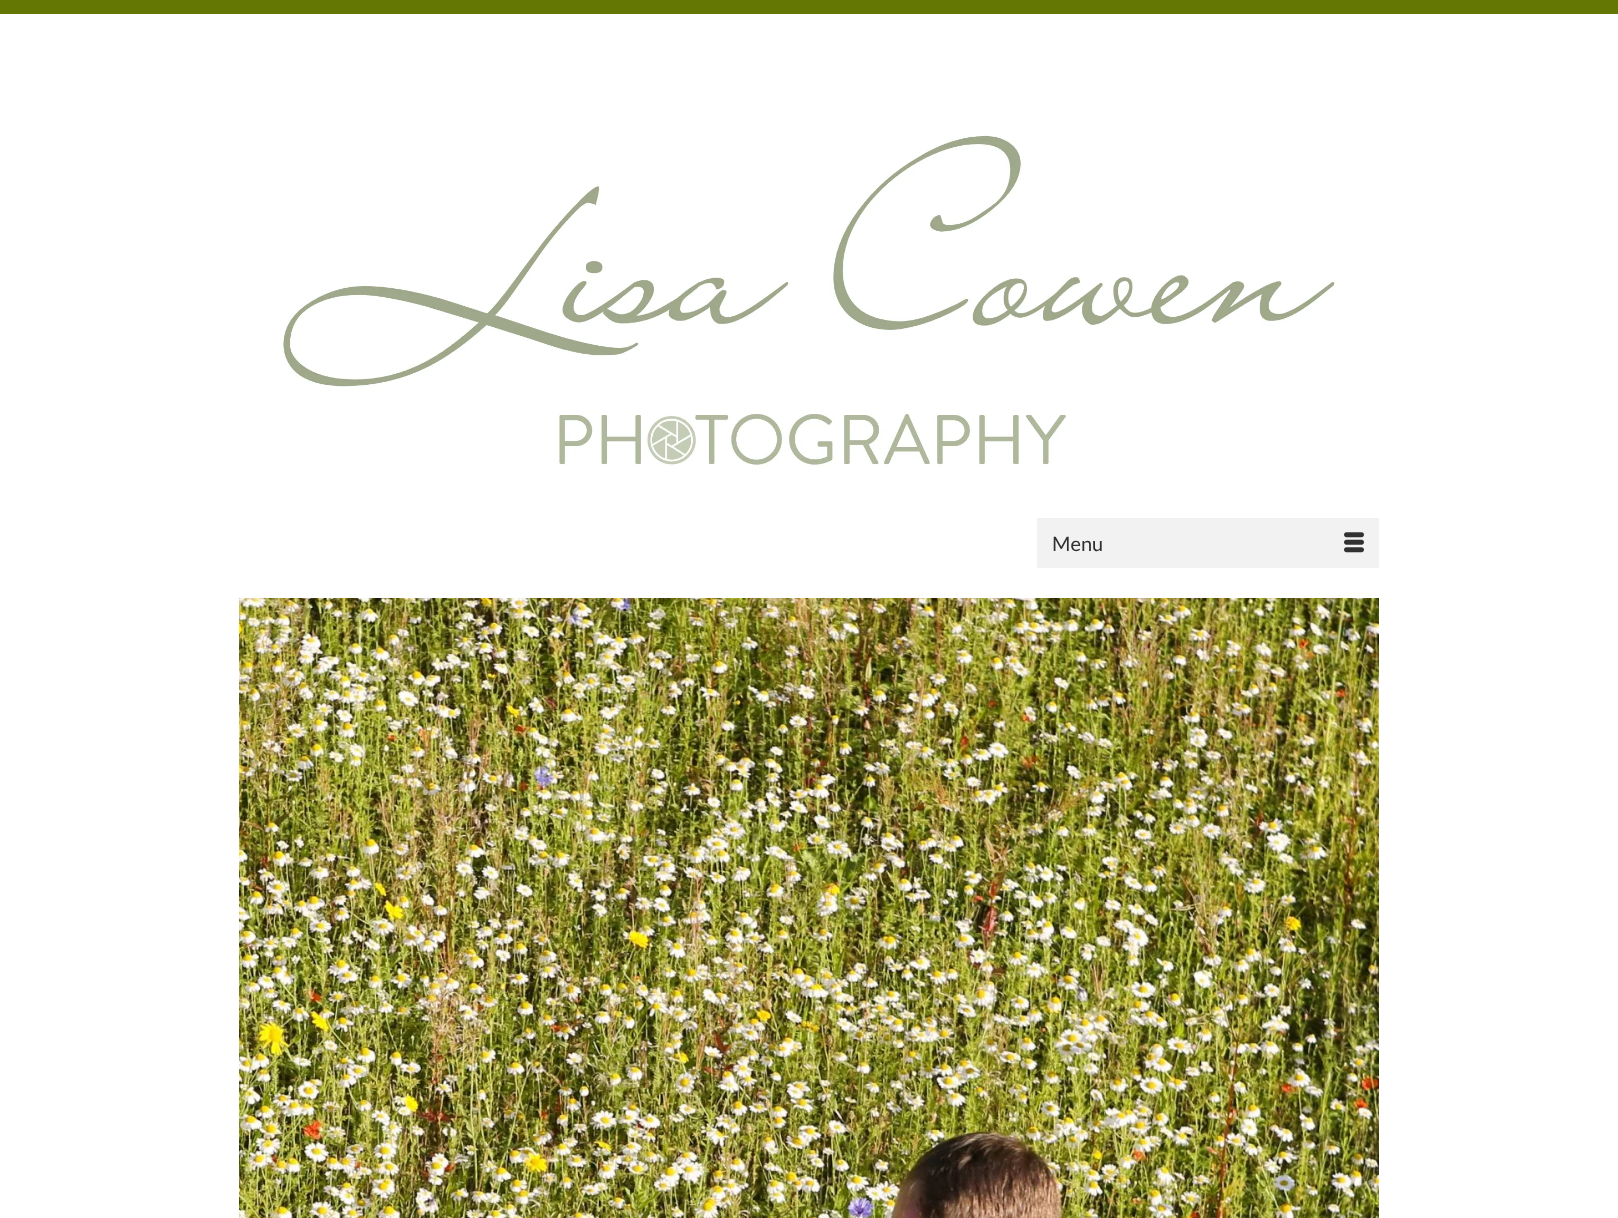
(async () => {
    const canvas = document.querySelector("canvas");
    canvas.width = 1618;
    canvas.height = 1218;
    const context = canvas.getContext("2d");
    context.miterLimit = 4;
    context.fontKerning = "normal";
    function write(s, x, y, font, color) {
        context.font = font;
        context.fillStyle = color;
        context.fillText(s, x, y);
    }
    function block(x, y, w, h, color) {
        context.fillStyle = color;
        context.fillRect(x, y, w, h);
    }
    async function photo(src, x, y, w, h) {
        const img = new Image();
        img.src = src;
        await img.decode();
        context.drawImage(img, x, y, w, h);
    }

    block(0, 0, 1618, 1218, "rgb(255, 255, 255)");
    block(0, 0, 1618, 14, "rgb(100, 119, 2)");
    await photo("media/1.png", 283, 135, 1052, 331);
    block(1037, 518, 342, 50, "rgb(242, 242, 242)");
    write("Menu", 1052, 551, "20px Lato", "rgb(48, 48, 48)");
    await photo("media/2.png", 1344, 532, 20, 21);
    await photo("media/3.png", 239, 598, 1140, 620);
})();
